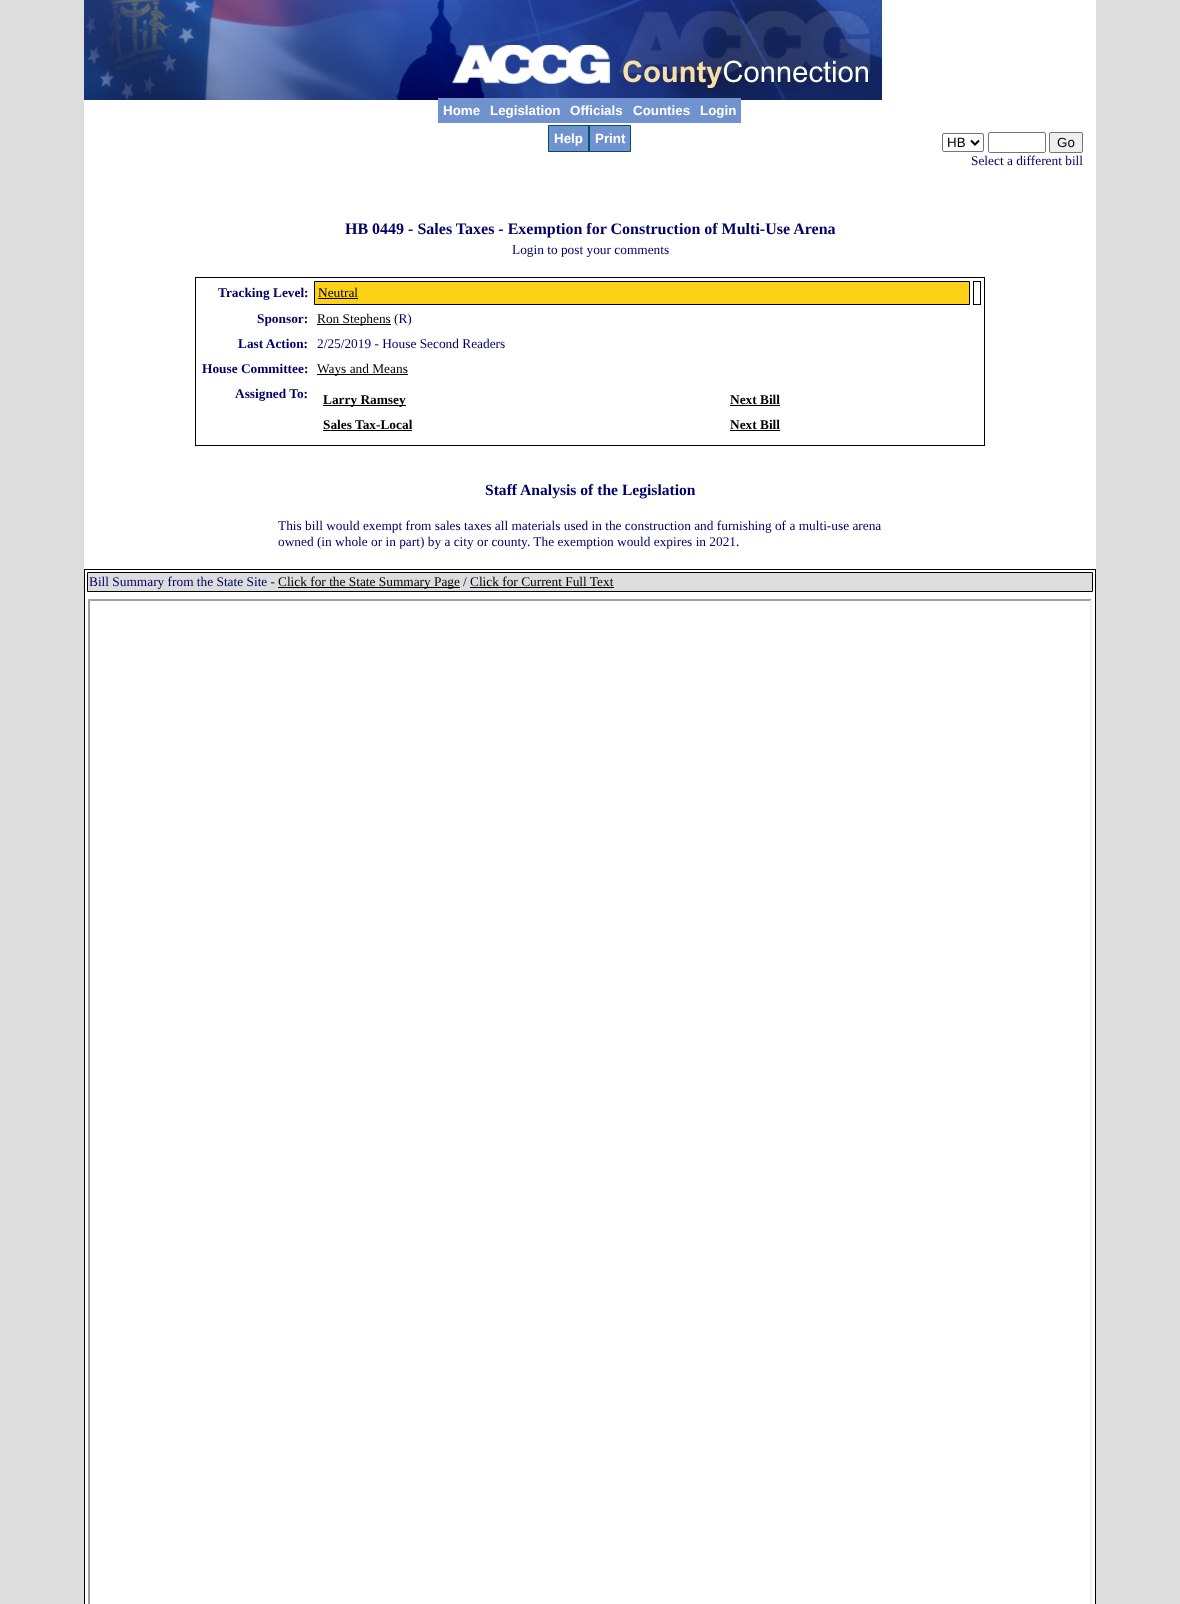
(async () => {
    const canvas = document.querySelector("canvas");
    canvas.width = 1180;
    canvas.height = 1604;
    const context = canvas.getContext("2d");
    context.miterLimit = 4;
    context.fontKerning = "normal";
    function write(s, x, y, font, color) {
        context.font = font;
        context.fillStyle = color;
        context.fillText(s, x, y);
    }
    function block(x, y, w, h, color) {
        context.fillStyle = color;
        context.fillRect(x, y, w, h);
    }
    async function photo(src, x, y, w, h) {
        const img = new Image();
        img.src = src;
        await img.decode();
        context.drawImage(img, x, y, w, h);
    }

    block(0, 0, 1180, 1604, "rgb(221, 221, 221)");
    block(84, 0, 1012, 1604, "rgb(255, 255, 255)");
    await photo("media/1.png", 84, 0, 800, 100);
    block(438, 98, 303, 25, "rgb(112, 146, 207)");
    write("Home", 443, 115, "bold 13.35px Liberation Sans", "rgb(255, 255, 255)");
    write("Legislation", 490, 115, "bold 13.35px Liberation Sans", "rgb(255, 255, 255)");
    write("Officials", 570, 115, "bold 13.35px Liberation Sans", "rgb(255, 255, 255)");
    write("Counties", 633, 115, "bold 13.35px Liberation Sans", "rgb(255, 255, 255)");
    write("Login", 700, 115, "bold 13.35px Liberation Sans", "rgb(255, 255, 255)");
    context.fillStyle = "rgb(112, 146, 207)";
    context.beginPath();
    context.rect(548.5, 125.5, 82, 26);
    context.fill();
    context.strokeStyle = "rgb(0, 79, 109)";
    context.stroke();
    write("Help", 554, 143, "bold 13.35px Liberation Sans", "rgb(255, 255, 255)");
    block(588, 126, 2, 25, "rgb(0, 79, 109)");
    write("Print", 595, 143, "bold 13.35px Liberation Sans", "rgb(255, 255, 255)");
    context.beginPath();
    context.roundRect(942.5, 133.5, 41, 18, 1.5);
    context.strokeStyle = "rgb(118, 118, 118)";
    context.stroke();
    context.beginPath();
    context.moveTo(971, 140.5);
    context.lineTo(975, 144.5);
    context.lineTo(979, 140.5);
    context.strokeStyle = "rgb(0, 0, 0)";
    context.lineWidth = 2;
    context.stroke();
    write("HB", 947, 147, "13.35px Liberation Sans", "rgb(0, 0, 0)");
    context.beginPath();
    context.roundRect(988.5, 132.5, 57, 20, 1.5);
    context.strokeStyle = "rgb(118, 118, 118)";
    context.lineWidth = 1;
    context.stroke();
    context.fillStyle = "rgb(239, 239, 239)";
    context.beginPath();
    context.roundRect(1049.5, 132.5, 33, 20, 1.5);
    context.fill();
    context.stroke();
    write("Go", 1057, 147, "13.35px Liberation Sans", "rgb(0, 0, 0)");
    write("Select a different bill", 971, 165, "13.35px Liberation Serif", "rgb(0, 0, 102)");
    write("HB 0449 - Sales Taxes - Exemption for Construction of Multi-Use Arena", 345, 234, "bold 16px Liberation Serif", "rgb(0, 0, 102)");
    write("Login to post your comments", 512, 254, "13.35px Liberation Serif", "rgb(0, 0, 102)");
    context.strokeStyle = "rgb(0, 0, 0)";
    context.strokeRect(195.5, 277.5, 789, 168);
    write("Tracking Level:", 218, 297, "bold 13.35px Liberation Serif", "rgb(0, 0, 102)");
    context.fillStyle = "rgb(252, 209, 22)";
    context.beginPath();
    context.rect(314.5, 281.5, 655, 23);
    context.fill();
    context.stroke();
    write("Neutral", 318, 297, "13.35px Liberation Serif", "rgb(0, 0, 0)");
    block(318, 298, 40, 1, "rgb(0, 0, 0)");
    context.strokeRect(973.5, 281.5, 7, 23);
    write("Sponsor:", 257, 323, "bold 13.35px Liberation Serif", "rgb(0, 0, 102)");
    block(317, 324, 74, 1, "rgb(0, 0, 0)");
    write("Ron Stephens", 317, 323, "13.35px Liberation Serif", "rgb(0, 0, 0)");
    write("(R)", 394, 323, "13.35px Liberation Serif", "rgb(0, 0, 102)");
    write("Last Action:", 238, 348, "bold 13.35px Liberation Serif", "rgb(0, 0, 102)");
    write("2/25/2019 - House Second Readers", 317, 348, "13.35px Liberation Serif", "rgb(0, 0, 102)");
    write("House Committee:", 202, 373, "bold 13.35px Liberation Serif", "rgb(0, 0, 102)");
    block(317, 374, 91, 1, "rgb(0, 0, 0)");
    write("Ways and Means", 317, 373, "13.35px Liberation Serif", "rgb(0, 0, 0)");
    write("Assigned To:", 235, 398, "bold 13.35px Liberation Serif", "rgb(0, 0, 102)");
    block(323, 405, 83, 1, "rgb(0, 0, 0)");
    write("Larry Ramsey", 323, 404, "bold 13.35px Liberation Serif", "rgb(0, 0, 0)");
    write("Next Bill", 730, 404, "bold 13.35px Liberation Serif", "rgb(0, 0, 0)");
    block(730, 405, 50, 1, "rgb(0, 0, 0)");
    write("Sales Tax-Local", 323, 429, "bold 13.35px Liberation Serif", "rgb(0, 0, 0)");
    block(323, 430, 89, 1, "rgb(0, 0, 0)");
    write("Next Bill", 730, 429, "bold 13.35px Liberation Serif", "rgb(0, 0, 0)");
    block(730, 430, 50, 1, "rgb(0, 0, 0)");
    write("Staff Analysis of the Legislation", 485, 495, "bold 15.6px Liberation Serif", "rgb(0, 0, 102)");
    write("This bill would exempt from sales taxes all materials used in the construction and furnishing of a multi-use arena", 278, 530, "13.35px Liberation Serif", "rgb(0, 0, 102)");
    write("owned (in whole or in part) by a city or county. The exemption would expires in 2021.", 278, 546, "13.35px Liberation Serif", "rgb(0, 0, 102)");
    context.strokeRect(84.5, 569.5, 1011, 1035);
    context.fillStyle = "rgb(221, 221, 221)";
    context.beginPath();
    context.rect(87.5, 572.5, 1005, 19);
    context.fill();
    context.stroke();
    write("Bill Summary from the State Site -", 89, 586, "13.35px Liberation Serif", "rgb(0, 0, 102)");
    block(278, 587, 182, 1, "rgb(0, 0, 0)");
    write("Click for the State Summary Page", 278, 586, "13.35px Liberation Serif", "rgb(0, 0, 0)");
    write("/", 463, 586, "13.35px Liberation Serif", "rgb(0, 0, 102)");
    write("Click for Current Full Text", 470, 586, "13.35px Liberation Serif", "rgb(0, 0, 0)");
    block(470, 587, 144, 1, "rgb(0, 0, 0)");
    context.fillStyle = "rgb(159, 159, 159)";
    context.beginPath();
    context.moveTo(88, 599);
    context.lineTo(1092, 599);
    context.lineTo(1090, 601);
    context.lineTo(90, 601);
    context.closePath();
    context.fill();
    context.beginPath();
    context.moveTo(88, 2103);
    context.lineTo(88, 599);
    context.lineTo(90, 601);
    context.lineTo(90, 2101);
    context.closePath();
    context.fill();
    context.fillStyle = "rgb(238, 238, 238)";
    context.beginPath();
    context.moveTo(1092, 599);
    context.lineTo(1092, 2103);
    context.lineTo(1090, 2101);
    context.lineTo(1090, 601);
    context.closePath();
    context.fill();
})();
